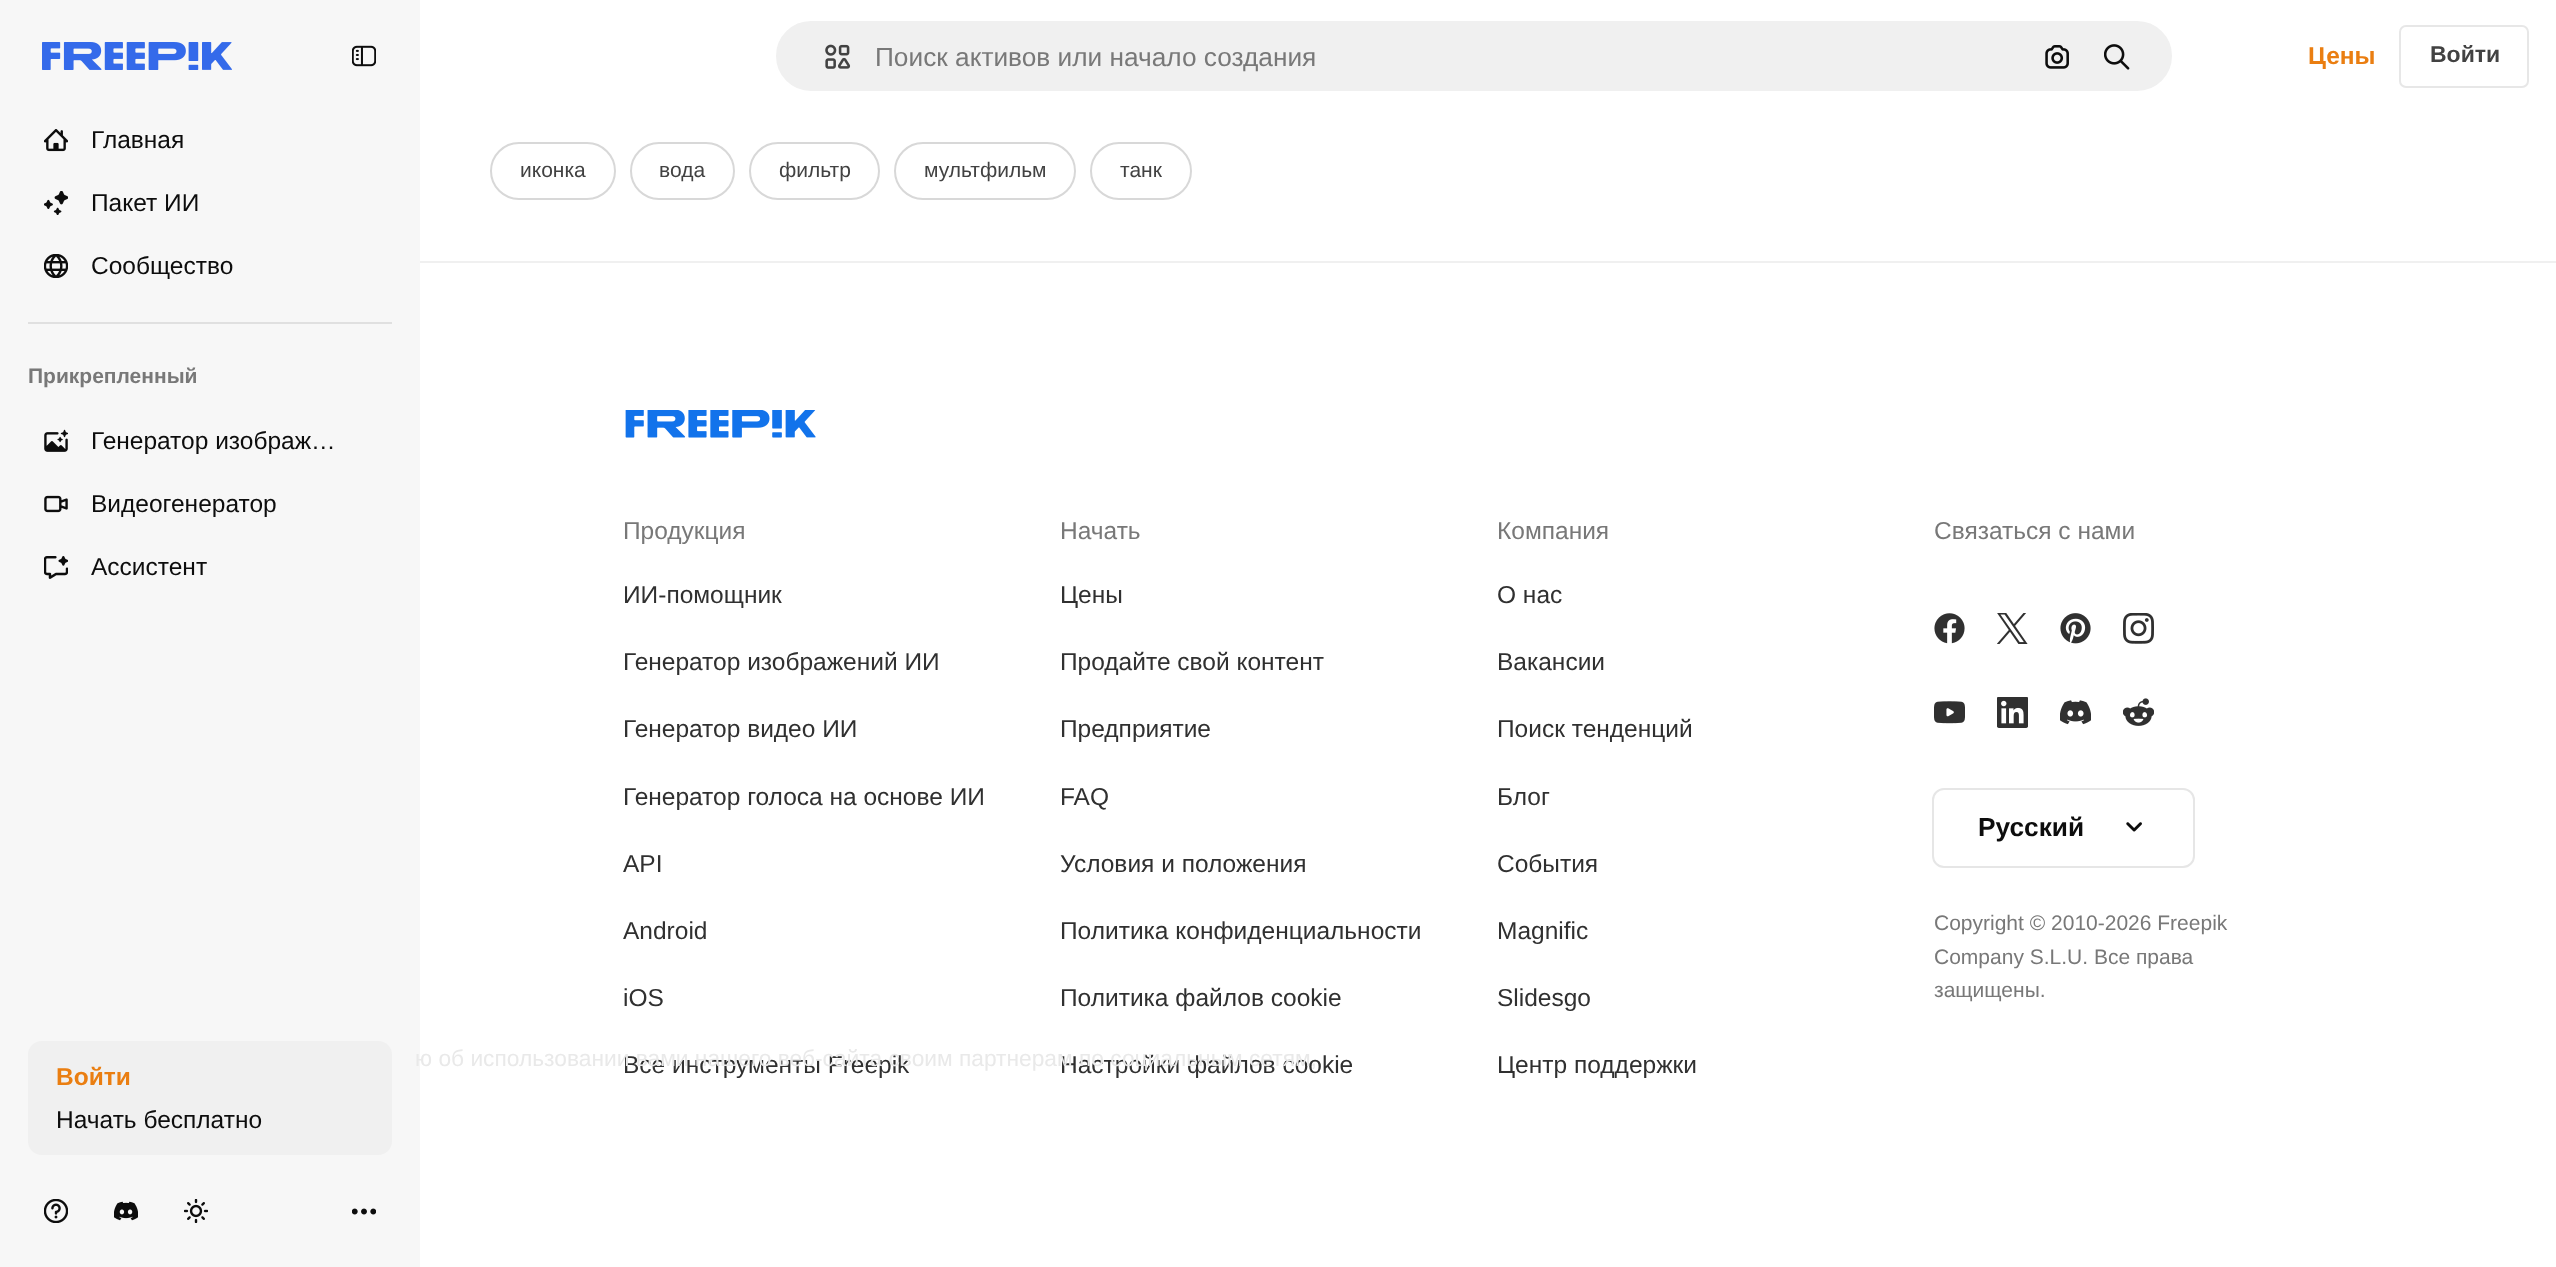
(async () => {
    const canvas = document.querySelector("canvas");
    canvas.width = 2556;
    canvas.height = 1267;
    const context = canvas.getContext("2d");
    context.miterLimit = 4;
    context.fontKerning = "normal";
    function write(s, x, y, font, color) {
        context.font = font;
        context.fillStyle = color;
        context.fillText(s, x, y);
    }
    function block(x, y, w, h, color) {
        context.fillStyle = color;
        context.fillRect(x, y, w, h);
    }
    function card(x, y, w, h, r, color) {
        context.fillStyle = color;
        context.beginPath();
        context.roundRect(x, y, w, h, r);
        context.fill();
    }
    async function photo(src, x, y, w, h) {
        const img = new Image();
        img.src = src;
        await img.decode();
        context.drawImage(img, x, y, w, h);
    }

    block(0, 0, 2556, 1267, "rgb(255, 255, 255)");
    block(0, 0, 420, 1267, "rgb(247, 247, 247)");
    await photo("media/1.png", 42, 42, 190, 28);
    await photo("media/2.png", 352, 45, 24, 22);
    await photo("media/3.png", 44, 129, 24, 23);
    write("Главная", 91, 148, "24.5px Liberation Sans", "rgb(13, 13, 13)");
    await photo("media/4.png", 44, 191, 24, 24);
    write("Пакет ИИ", 91, 211, "24.5px Liberation Sans", "rgb(13, 13, 13)");
    await photo("media/5.png", 44, 254, 24, 24);
    write("Сообщество", 91, 274, "24.5px Liberation Sans", "rgb(13, 13, 13)");
    block(28, 322, 364, 2, "rgb(224, 224, 224)");
    write("Прикрепленный", 28, 383, "bold 21px Liberation Sans", "rgb(120, 120, 120)");
    await photo("media/6.png", 44, 429, 24, 23);
    write("Генератор изображ…", 91, 449, "24.5px Liberation Sans", "rgb(13, 13, 13)");
    await photo("media/7.png", 44, 495, 24, 18);
    write("Видеогенератор", 91, 512, "24.5px Liberation Sans", "rgb(13, 13, 13)");
    await photo("media/8.png", 44, 556, 24, 23);
    write("Ассистент", 91, 575, "24.5px Liberation Sans", "rgb(13, 13, 13)");
    card(28, 1041, 364, 114, 14, "rgb(240, 240, 240)");
    write("Войти", 56, 1085, "bold 24.5px Liberation Sans", "rgb(234, 126, 17)");
    write("Начать бесплатно", 56, 1128, "24.5px Liberation Sans", "rgb(13, 13, 13)");
    await photo("media/9.png", 44, 1199, 24, 24);
    await photo("media/10.png", 114, 1201, 24, 20);
    await photo("media/11.png", 184, 1199, 24, 24);
    await photo("media/12.png", 352, 1208, 24, 7);
    context.fillStyle = "rgb(240, 240, 240)";
    context.beginPath();
    context.roundRect(775, 20, 1398, 72, 36);
    context.fill();
    context.strokeStyle = "rgb(255, 255, 255)";
    context.lineWidth = 2;
    context.stroke();
    await photo("media/13.png", 825, 44, 26, 25);
    write("Поиск активов или начало создания", 875, 66, "26.25px Liberation Sans", "rgb(120, 120, 120)");
    await photo("media/14.png", 2045, 45, 24, 24);
    await photo("media/15.png", 2104, 44, 26, 26);
    write("Цены", 2308, 64, "bold 24.5px Liberation Sans", "rgb(234, 126, 17)");
    context.beginPath();
    context.roundRect(2400, 26, 128, 61, 6);
    context.strokeStyle = "rgb(231, 231, 231)";
    context.stroke();
    write("Войти", 2430, 62, "bold 23px Liberation Sans", "rgb(66, 66, 66)");
    context.beginPath();
    context.roundRect(491, 143, 124, 56, 28);
    context.strokeStyle = "rgb(216, 216, 216)";
    context.stroke();
    write("иконка", 520, 177, "21px Liberation Sans", "rgb(66, 66, 66)");
    context.beginPath();
    context.roundRect(631, 143, 103, 56, 28);
    context.stroke();
    write("вода", 659, 177, "21px Liberation Sans", "rgb(66, 66, 66)");
    context.beginPath();
    context.roundRect(750, 143, 129, 56, 28);
    context.stroke();
    write("фильтр", 779, 177, "21px Liberation Sans", "rgb(66, 66, 66)");
    context.beginPath();
    context.roundRect(895, 143, 180, 56, 28);
    context.stroke();
    write("мультфильм", 924, 177, "21px Liberation Sans", "rgb(66, 66, 66)");
    context.beginPath();
    context.roundRect(1091, 143, 100, 56, 28);
    context.stroke();
    write("танк", 1120, 177, "21px Liberation Sans", "rgb(66, 66, 66)");
    block(420, 261, 2136, 2, "rgb(240, 240, 240)");
    await photo("media/16.png", 625, 410, 191, 28);
    write("Продукция", 623, 539, "24.5px Liberation Sans", "rgb(120, 120, 120)");
    write("ИИ-помощник", 623, 603, "24.5px Liberation Sans", "rgb(48, 48, 48)");
    write("Генератор изображений ИИ", 623, 670, "24.5px Liberation Sans", "rgb(48, 48, 48)");
    write("Генератор видео ИИ", 623, 737, "24.5px Liberation Sans", "rgb(48, 48, 48)");
    write("Генератор голоса на основе ИИ", 623, 805, "24.5px Liberation Sans", "rgb(48, 48, 48)");
    write("API", 623, 872, "24.5px Liberation Sans", "rgb(48, 48, 48)");
    write("Android", 623, 939, "24.5px Liberation Sans", "rgb(48, 48, 48)");
    write("iOS", 623, 1006, "24.5px Liberation Sans", "rgb(48, 48, 48)");
    write("Все инструменты Freepik", 623, 1073, "24.5px Liberation Sans", "rgb(48, 48, 48)");
    write("Начать", 1060, 539, "24.5px Liberation Sans", "rgb(120, 120, 120)");
    write("Цены", 1060, 603, "24.5px Liberation Sans", "rgb(48, 48, 48)");
    write("Продайте свой контент", 1060, 670, "24.5px Liberation Sans", "rgb(48, 48, 48)");
    write("Предприятие", 1060, 737, "24.5px Liberation Sans", "rgb(48, 48, 48)");
    write("FAQ", 1060, 805, "24.5px Liberation Sans", "rgb(48, 48, 48)");
    write("Условия и положения", 1060, 872, "24.5px Liberation Sans", "rgb(48, 48, 48)");
    write("Политика конфиденциальности", 1060, 939, "24.5px Liberation Sans", "rgb(48, 48, 48)");
    write("Политика файлов cookie", 1060, 1006, "24.5px Liberation Sans", "rgb(48, 48, 48)");
    write("Настройки файлов cookie", 1060, 1073, "24.5px Liberation Sans", "rgb(48, 48, 48)");
    write("Компания", 1497, 539, "24.5px Liberation Sans", "rgb(120, 120, 120)");
    write("О нас", 1497, 603, "24.5px Liberation Sans", "rgb(48, 48, 48)");
    write("Вакансии", 1497, 670, "24.5px Liberation Sans", "rgb(48, 48, 48)");
    write("Поиск тенденций", 1497, 737, "24.5px Liberation Sans", "rgb(48, 48, 48)");
    write("Блог", 1497, 805, "24.5px Liberation Sans", "rgb(48, 48, 48)");
    write("События", 1497, 872, "24.5px Liberation Sans", "rgb(48, 48, 48)");
    write("Magnific", 1497, 939, "24.5px Liberation Sans", "rgb(48, 48, 48)");
    write("Slidesgo", 1497, 1006, "24.5px Liberation Sans", "rgb(48, 48, 48)");
    write("Центр поддержки", 1497, 1073, "24.5px Liberation Sans", "rgb(48, 48, 48)");
    write("Связаться с нами", 1934, 539, "24.5px Liberation Sans", "rgb(120, 120, 120)");
    await photo("media/17.png", 1934, 613, 31, 31);
    await photo("media/18.png", 1997, 613, 31, 31);
    await photo("media/19.png", 2060, 613, 31, 31);
    await photo("media/20.png", 2123, 613, 31, 31);
    await photo("media/21.png", 1934, 701, 31, 23);
    await photo("media/22.png", 1997, 697, 31, 31);
    await photo("media/23.png", 2060, 700, 31, 25);
    await photo("media/24.png", 2123, 698, 31, 28);
    context.beginPath();
    context.roundRect(1933, 789, 261, 78, 11);
    context.strokeStyle = "rgb(230, 230, 230)";
    context.stroke();
    write("Pусский", 1978, 836, "bold 26.25px Liberation Sans", "rgb(13, 13, 13)");
    await photo("media/25.png", 2126, 822, 16, 10);
    write("Copyright © 2010-2026 Freepik", 1934, 930, "21px Liberation Sans", "rgb(120, 120, 120)");
    write("Company S.L.U. Все права", 1934, 964, "21px Liberation Sans", "rgb(120, 120, 120)");
    write("защищены.", 1934, 997, "21px Liberation Sans", "rgb(120, 120, 120)");
    write("ю об использовании вами нашего веб-сайта своим партнерам по социальным сетям,", 415, 1066, "22.75px Liberation Sans", "rgb(233, 233, 233)");
})();
